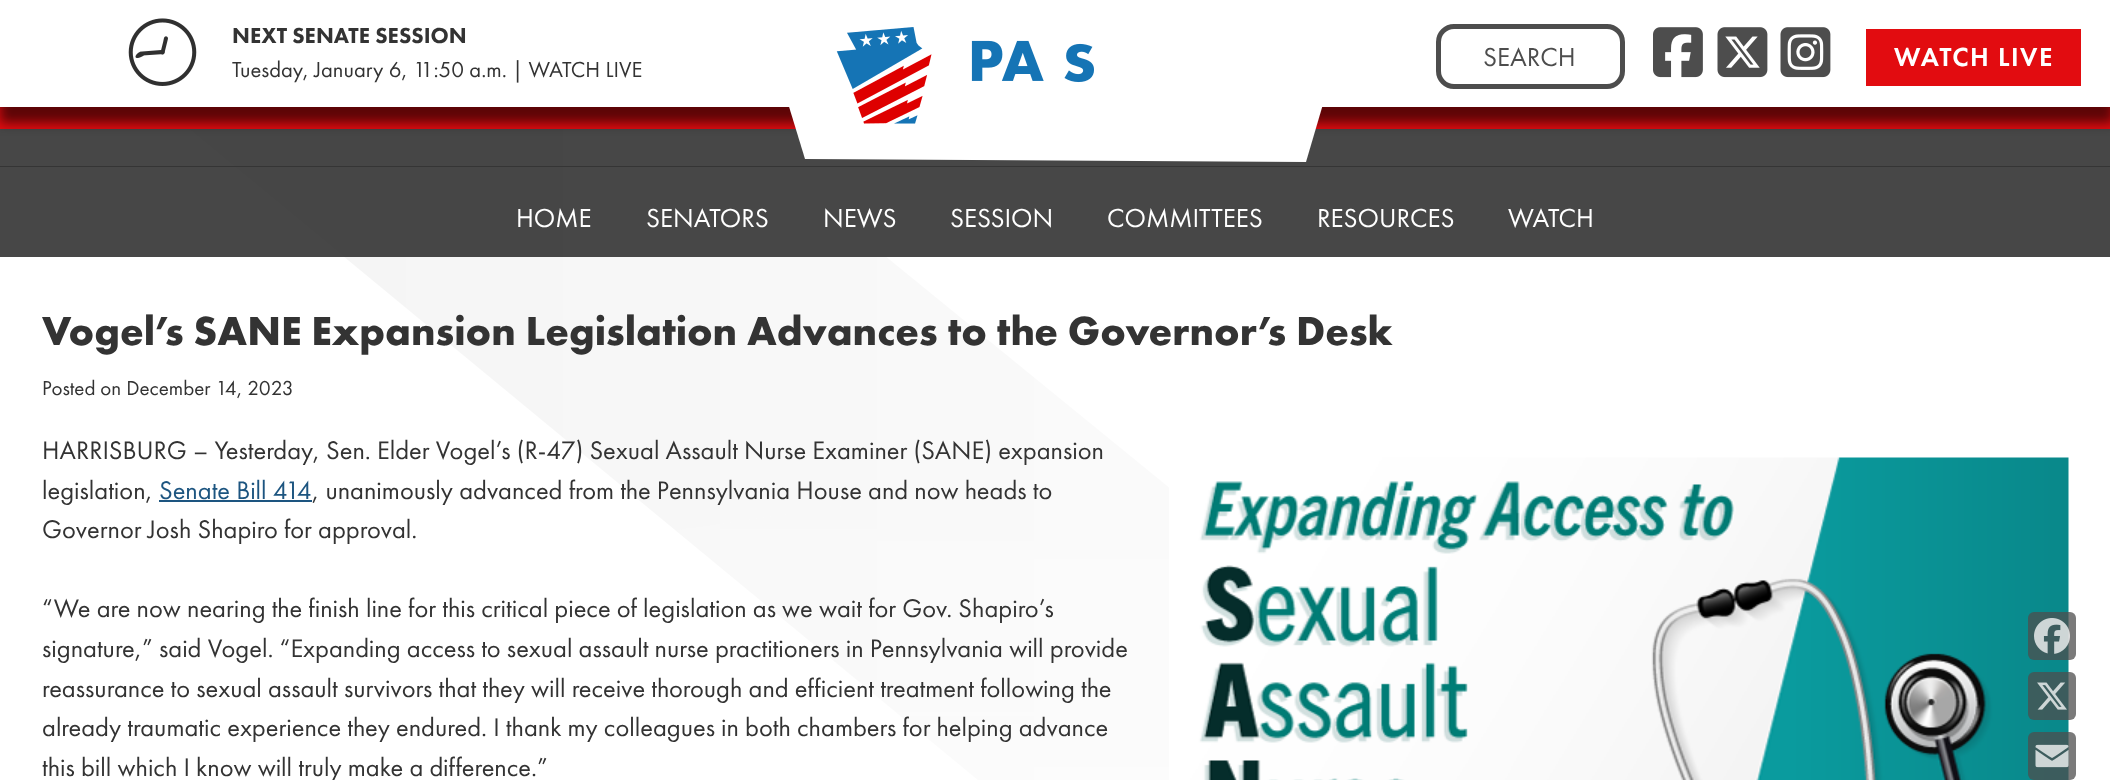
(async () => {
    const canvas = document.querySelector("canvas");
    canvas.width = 2110;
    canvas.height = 780;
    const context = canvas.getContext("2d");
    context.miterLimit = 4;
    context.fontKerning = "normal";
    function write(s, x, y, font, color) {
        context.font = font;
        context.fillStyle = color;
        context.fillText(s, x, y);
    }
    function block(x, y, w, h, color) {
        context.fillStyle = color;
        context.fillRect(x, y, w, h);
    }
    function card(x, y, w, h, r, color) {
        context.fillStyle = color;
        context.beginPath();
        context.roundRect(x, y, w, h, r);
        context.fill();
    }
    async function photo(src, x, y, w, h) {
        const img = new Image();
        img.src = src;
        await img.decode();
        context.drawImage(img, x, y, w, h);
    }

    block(0, 0, 2110, 780, "rgb(255, 255, 255)");
    await photo("media/1.png", 36, 129, 1133, 651);
    block(0, 129, 2110, 38, "rgba(51, 51, 51, 0.9)");
    block(0, 107, 2110, 22, "rgb(226, 12, 16)");
    context.fillStyle = "rgba(0, 0, 0, 0.59)";
    context.filter = "blur(6px)";
    context.beginPath();
    context.rect(0, 14, 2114, 109);
    context.fill();
    context.filter = "none";
    block(0, 1, 2110, 106, "rgb(255, 255, 255)");
    context.beginPath();
    context.moveTo(765, 26);
    context.lineTo(1346, 26);
    context.lineTo(1306, 162);
    context.lineTo(805, 159);
    context.lineTo(765, 28);
    context.closePath();
    context.fill();
    await photo("media/2.png", 836, 27, 258, 97);
    await photo("media/3.png", 128, 18, 69, 68);
    write("NEXT SENATE SESSION", 232, 43, "900 22.5px Futura PT", "rgb(51, 51, 51)");
    write("Tuesday, January 6, 11:50 a.m. | WATCH LIVE", 232, 77, "22.5px Futura PT", "rgb(51, 51, 51)");
    context.beginPath();
    context.roundRect(1438.5, 26.5, 184, 60, 15.5);
    context.strokeStyle = "rgb(77, 77, 77)";
    context.lineWidth = 5;
    context.stroke();
    write("SEARCH", 1483, 66, "27px Futura PT", "rgb(77, 77, 77)");
    await photo("media/4.png", 1653, 27, 50, 51);
    await photo("media/5.png", 1717, 27, 51, 51);
    await photo("media/6.png", 1780, 27, 51, 51);
    block(1866, 29, 215, 57, "rgb(226, 12, 16)");
    context.letterSpacing = "1.5px";
    write("WATCH LIVE", 1894, 66, "500 27px Futura PT", "rgb(255, 255, 255)");
    block(0, 166, 2110, 91, "rgba(51, 51, 51, 0.9)");
    context.letterSpacing = "0px";
    write("HOME", 516, 227, "27px Futura PT", "rgb(255, 255, 255)");
    write("SENATORS", 646, 227, "27px Futura PT", "rgb(255, 255, 255)");
    write("NEWS", 823, 227, "27px Futura PT", "rgb(255, 255, 255)");
    write("SESSION", 950, 227, "27px Futura PT", "rgb(255, 255, 255)");
    write("COMMITTEES", 1107, 227, "27px Futura PT", "rgb(255, 255, 255)");
    write("RESOURCES", 1317, 227, "27px Futura PT", "rgb(255, 255, 255)");
    write("WATCH", 1508, 227, "27px Futura PT", "rgb(255, 255, 255)");
    write("Vogel’s SANE Expansion Legislation Advances to the Governor’s Desk", 42, 345, "bold 42px Futura PT", "rgb(51, 51, 51)");
    write("Posted on December 14, 2023", 42, 395, "21px Futura PT", "rgb(51, 51, 51)");
    write("HARRISBURG – Yesterday, Sen. Elder Vogel’s (R-47) Sexual Assault Nurse Examiner (SANE) expansion", 42, 459, "26.4px Futura PT", "rgb(51, 51, 51)");
    write("legislation,", 42, 499, "26.4px Futura PT", "rgb(51, 51, 51)");
    write("Senate Bill 414", 159, 499, "26.4px Futura PT", "rgb(29, 85, 128)");
    block(159, 500, 153, 2, "rgb(29, 85, 128)");
    write(", unanimously advanced from the Pennsylvania House and now heads to", 312, 499, "26.4px Futura PT", "rgb(51, 51, 51)");
    write("Governor Josh Shapiro for approval.", 42, 538, "26.4px Futura PT", "rgb(51, 51, 51)");
    await photo("media/7.png", 1169, 457, 900, 323);
    write("“We are now nearing the finish line for this critical piece of legislation as we wait for Gov. Shapiro’s", 42, 617, "26.4px Futura PT", "rgb(51, 51, 51)");
    write("signature,” said Vogel. “Expanding access to sexual assault nurse practitioners in Pennsylvania will provide", 42, 657, "26.4px Futura PT", "rgb(51, 51, 51)");
    write("reassurance to sexual assault survivors that they will receive thorough and efficient treatment following the", 42, 697, "26.4px Futura PT", "rgb(51, 51, 51)");
    write("already traumatic experience they endured. I thank my colleagues in both chambers for helping advance", 42, 736, "26.4px Futura PT", "rgb(51, 51, 51)");
    write("this bill which I know will truly make a difference.”", 42, 776, "26.4px Futura PT", "rgb(51, 51, 51)");
    card(2028, 612, 48, 48, 6, "rgba(77, 77, 77, 0.75)");
    await photo("media/8.png", 2034, 618, 36, 36);
    card(2028, 672, 48, 48, 6, "rgba(77, 77, 77, 0.75)");
    await photo("media/9.png", 2037, 682, 30, 28);
    card(2028, 732, 48, 48, 6, "rgba(77, 77, 77, 0.75)");
    await photo("media/10.png", 2035, 744, 34, 24);
})();
